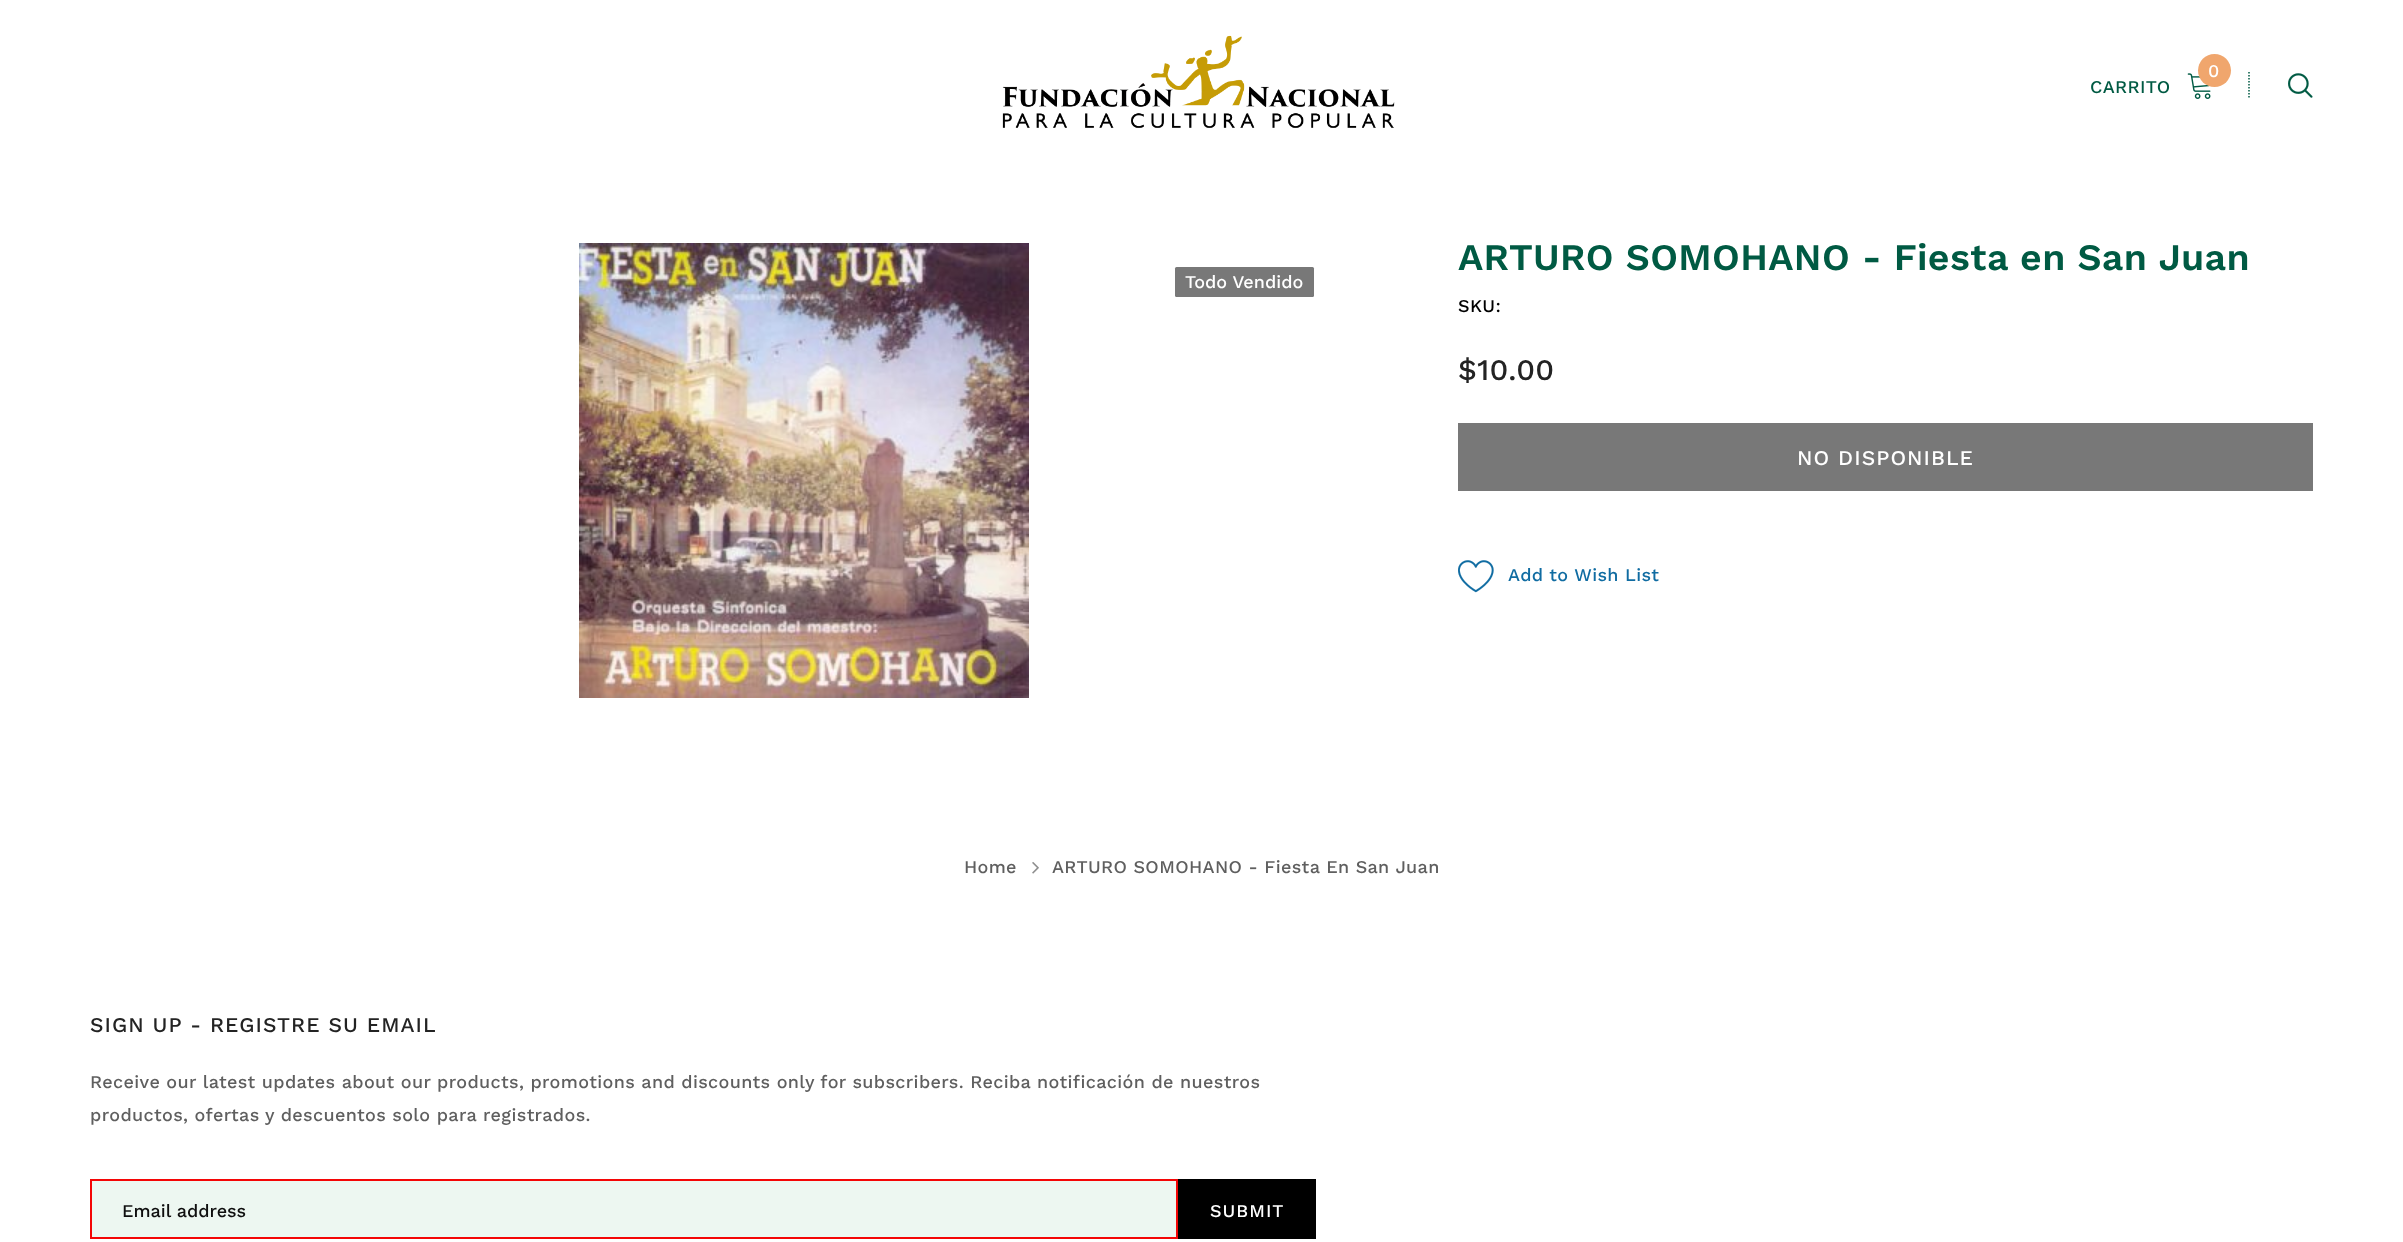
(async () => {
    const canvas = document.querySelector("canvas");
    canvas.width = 2403;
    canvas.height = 1242;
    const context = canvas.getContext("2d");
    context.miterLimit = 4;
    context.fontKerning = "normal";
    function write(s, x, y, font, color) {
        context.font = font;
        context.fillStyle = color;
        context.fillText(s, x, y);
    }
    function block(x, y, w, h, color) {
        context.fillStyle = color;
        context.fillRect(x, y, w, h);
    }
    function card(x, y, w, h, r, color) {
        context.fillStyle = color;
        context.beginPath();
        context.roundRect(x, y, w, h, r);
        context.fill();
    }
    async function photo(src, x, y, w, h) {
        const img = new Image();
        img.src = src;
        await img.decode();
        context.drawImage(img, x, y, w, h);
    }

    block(0, 0, 2403, 1242, "rgb(255, 255, 255)");
    await photo("media/1.png", 1002, 35, 393, 93);
    await photo("media/2.png", 2187, 73, 24, 26);
    context.fillStyle = "rgb(240, 166, 109)";
    context.beginPath();
    context.arc(2214.5, 70.5, 16.5, 0, Math.PI * 2);
    context.fill();
    context.letterSpacing = "0.36px";
    write("0", 2208, 77, "500 18px Work Sans", "rgb(255, 255, 255)");
    write("CARRITO", 2090, 93, "500 18px Work Sans", "rgb(0, 90, 67)");
    context.beginPath();
    context.moveTo(2249, 72);
    context.lineTo(2249, 99);
    context.strokeStyle = "rgb(0, 90, 67)";
    context.lineWidth = 1.5;
    context.setLineDash([1.5, 1.5]);
    context.stroke();
    await photo("media/3.png", 2288, 73, 25, 25);
    await photo("media/4.png", 579, 243, 450, 455);
    card(1175, 267, 139, 30, 1.5, "rgb(120, 120, 120)");
    context.letterSpacing = "0px";
    write("Todo Vendido", 1185, 288, "500 18px Work Sans", "rgb(255, 255, 255)");
    context.letterSpacing = "0.36px";
    write("ARTURO SOMOHANO - Fiesta en San Juan", 1458, 270, "600 37.5px Work Sans", "rgb(0, 90, 67)");
    write("SKU:", 1458, 312, "500 18px Work Sans", "rgb(0, 0, 0)");
    write("$10.00", 1458, 380, "500 30px Work Sans", "rgb(35, 35, 35)");
    block(1458, 423, 855, 68, "rgb(120, 120, 120)");
    context.letterSpacing = "1.05px";
    write("NO DISPONIBLE", 1797, 465, "500 21px Work Sans", "rgb(255, 255, 255)");
    await photo("media/5.png", 1458, 560, 36, 33);
    context.letterSpacing = "0.36px";
    write("Add to Wish List", 1508, 581, "500 18px Work Sans", "rgb(16, 108, 162)");
    write("Home", 964, 873, "500 18px Work Sans", "rgb(95, 95, 95)");
    await photo("media/6.png", 1032, 862, 7, 12);
    write("ARTURO SOMOHANO - Fiesta En San Juan", 1052, 873, "500 18px Work Sans", "rgb(95, 95, 95)");
    context.letterSpacing = "1.05px";
    write("SIGN UP - REGISTRE SU EMAIL", 90, 1032, "500 21px Work Sans", "rgb(35, 35, 35)");
    context.letterSpacing = "0.36px";
    write("Receive our latest updates about our products, promotions and discounts only for subscribers. Reciba notificación de nuestros", 90, 1088, "500 18px Work Sans", "rgb(95, 95, 95)");
    write("productos, ofertas", 90, 1121, "500 18px Work Sans", "rgb(95, 95, 95)");
    write("y descuentos solo para registrados.", 265, 1121, "500 18px Work Sans", "rgb(95, 95, 95)");
    context.fillStyle = "rgb(237, 247, 241)";
    context.beginPath();
    context.rect(91, 1180, 1086, 58);
    context.fill();
    context.strokeStyle = "rgb(244, 6, 6)";
    context.lineWidth = 2;
    context.setLineDash([]);
    context.stroke();
    context.letterSpacing = "0px";
    write("Email address", 122, 1217, "500 18px Work Sans", "rgb(15, 15, 15)");
    block(1178, 1179, 138, 60, "rgb(0, 0, 0)");
    context.letterSpacing = "1px";
    write("SUBMIT", 1210, 1217, "500 18px Work Sans", "rgb(255, 255, 255)");
})();
